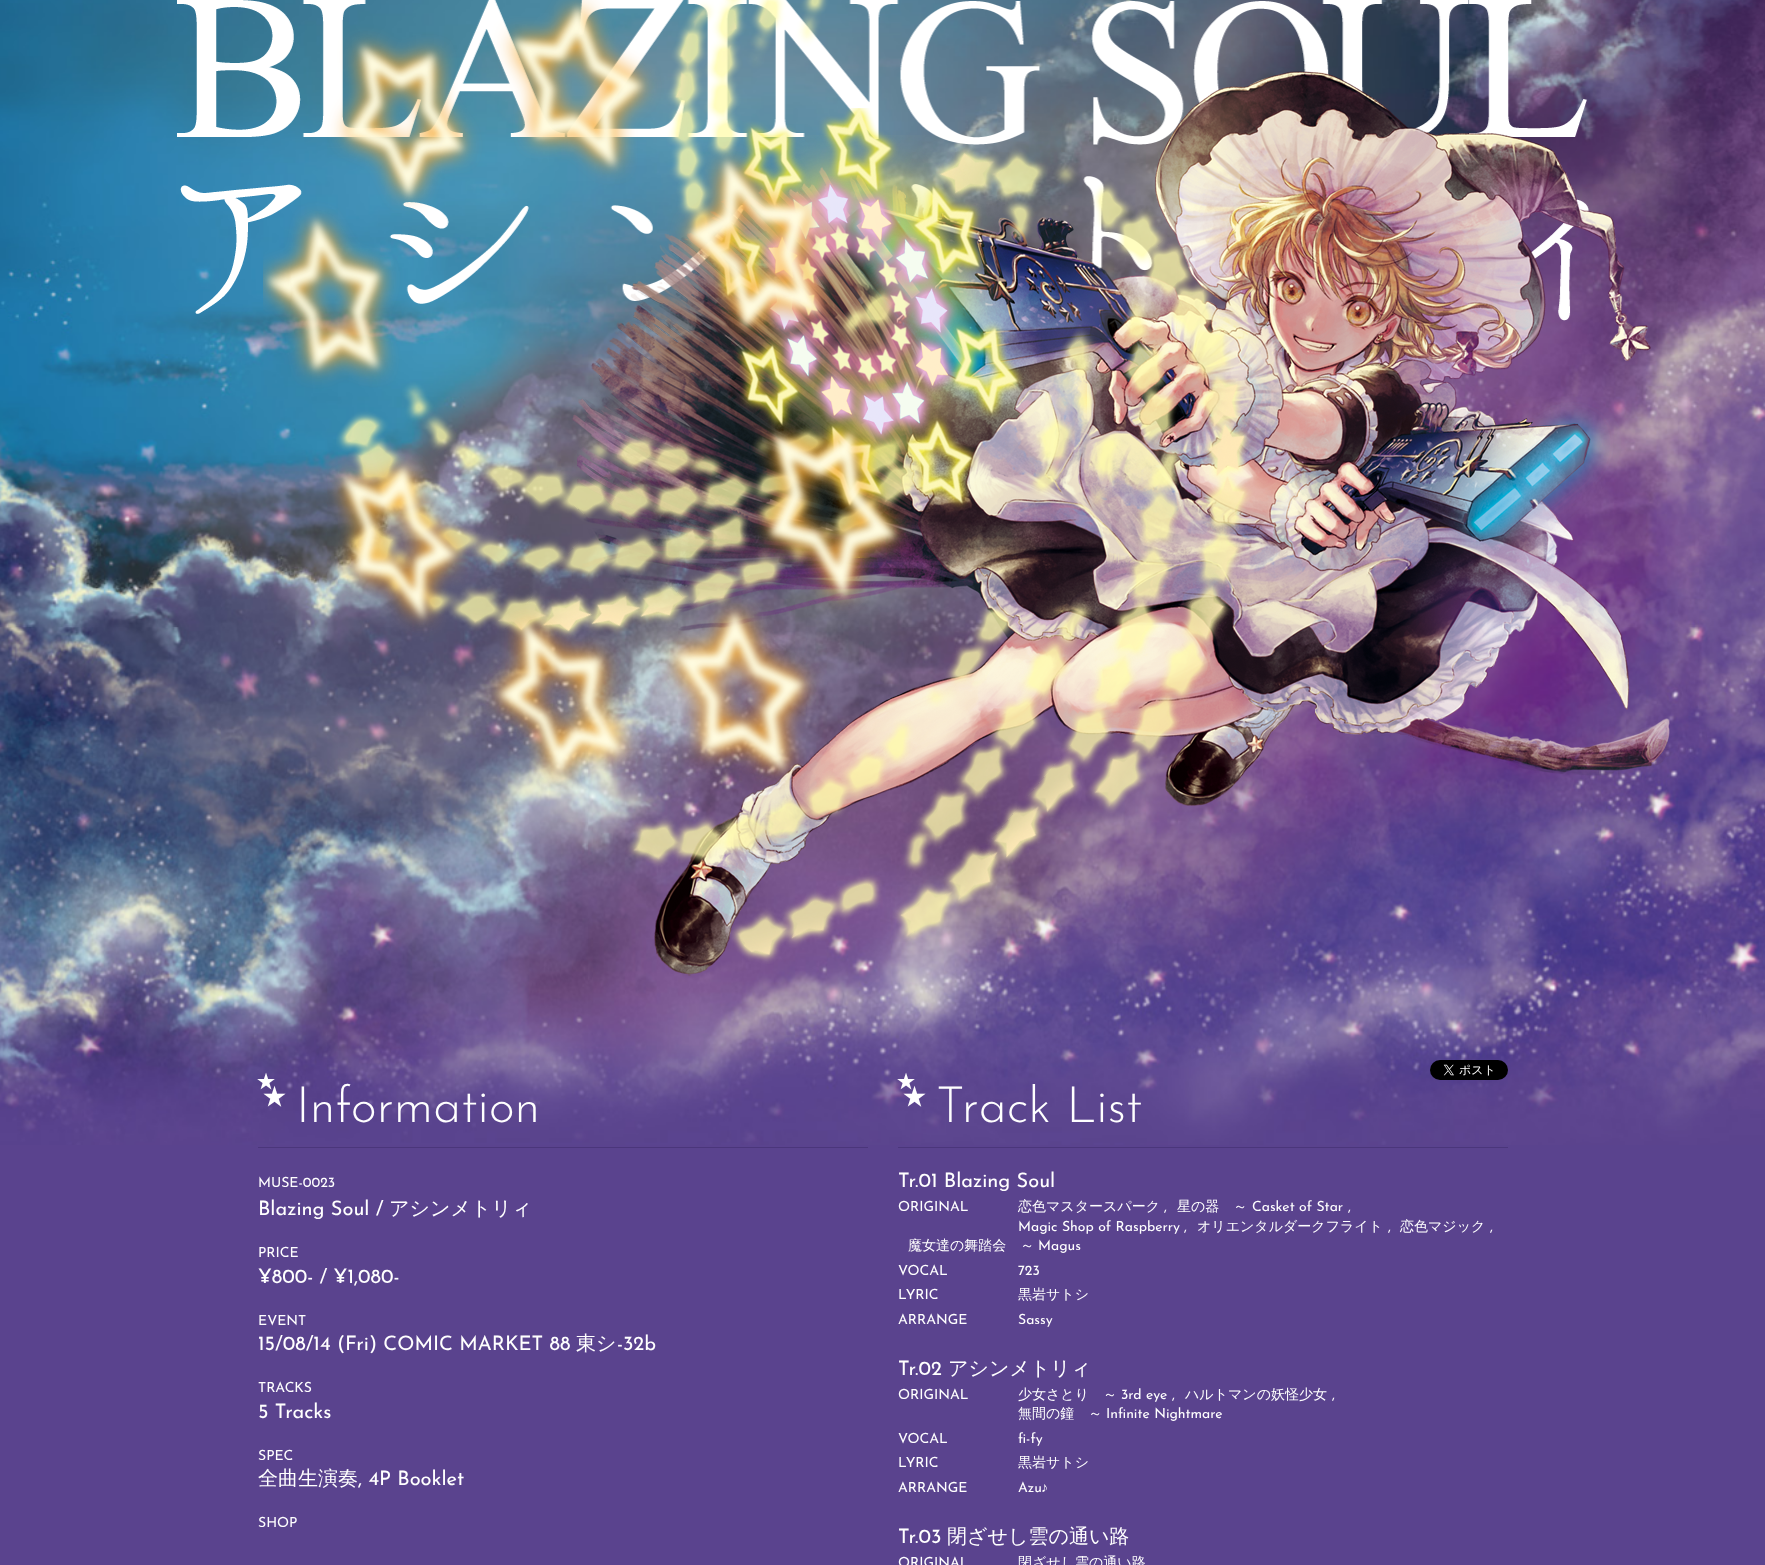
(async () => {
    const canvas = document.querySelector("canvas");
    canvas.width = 1765;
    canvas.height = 1565;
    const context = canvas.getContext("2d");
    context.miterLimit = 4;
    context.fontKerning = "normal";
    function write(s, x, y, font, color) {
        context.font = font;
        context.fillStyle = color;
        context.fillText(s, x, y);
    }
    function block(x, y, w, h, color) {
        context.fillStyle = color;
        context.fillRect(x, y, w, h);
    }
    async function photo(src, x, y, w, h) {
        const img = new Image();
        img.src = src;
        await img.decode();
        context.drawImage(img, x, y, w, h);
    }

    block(0, 0, 1765, 1565, "rgb(90, 67, 142)");
    await photo("media/1.png", 0, 0, 1765, 1145);
    await photo("media/2.png", 177, 0, 1412, 321);
    await photo("media/9.png", 572, 71, 1098, 905);
    await photo("media/4.png", 336, 0, 917, 964);
    await photo("media/6.png", 715, 135, 298, 423);
    await photo("media/8.png", 789, 216, 230, 342);
    await photo("media/7.png", 759, 176, 200, 268);
    await photo("media/5.png", 702, 108, 385, 403);
    await photo("media/3.png", 263, 0, 649, 790);
    await photo("media/10.png", 1430, 1060, 78, 20);
    block(258, 1147, 610, 1, "rgb(75, 54, 123)");
    write("★", 256, 1088, "500 20px WenQuanYi Zen Hei", "rgb(255, 255, 255)");
    write("★", 262, 1105, "500 25px WenQuanYi Zen Hei", "rgb(255, 255, 255)");
    write("Information", 296, 1122, "300 50px Josefin Sans", "rgb(255, 255, 255)");
    write("MUSE-0023", 258, 1187, "14px Josefin Sans", "rgb(255, 255, 255)");
    write("Blazing Soul /", 258, 1215, "20px Josefin Sans", "rgb(255, 255, 255)");
    write("アシンメトリィ", 389, 1215, "500 20px WenQuanYi Zen Hei", "rgb(255, 255, 255)");
    write("PRICE", 258, 1257, "14px Josefin Sans", "rgb(255, 255, 255)");
    write("¥800- / ¥1,080-", 258, 1283, "20px Josefin Sans", "rgb(255, 255, 255)");
    write("EVENT", 258, 1325, "14px Josefin Sans", "rgb(255, 255, 255)");
    write("15/08/14 (Fri) COMIC MARKET 88", 258, 1350, "20px Josefin Sans", "rgb(255, 255, 255)");
    write("東シ", 576, 1350, "500 20px WenQuanYi Zen Hei", "rgb(255, 255, 255)");
    write("-32b", 617, 1350, "20px Josefin Sans", "rgb(255, 255, 255)");
    write("TRACKS", 258, 1392, "14px Josefin Sans", "rgb(255, 255, 255)");
    write("5 Tracks", 258, 1418, "20px Josefin Sans", "rgb(255, 255, 255)");
    write("SPEC", 258, 1460, "14px Josefin Sans", "rgb(255, 255, 255)");
    write("全曲生演奏", 258, 1485, "500 20px WenQuanYi Zen Hei", "rgb(255, 255, 255)");
    write(", 4P Booklet", 358, 1485, "20px Josefin Sans", "rgb(255, 255, 255)");
    write("SHOP", 258, 1527, "14px Josefin Sans", "rgb(255, 255, 255)");
    block(898, 1147, 610, 1, "rgb(75, 54, 123)");
    write("★", 896, 1088, "500 20px WenQuanYi Zen Hei", "rgb(255, 255, 255)");
    write("★", 902, 1105, "500 25px WenQuanYi Zen Hei", "rgb(255, 255, 255)");
    write("Track List", 936, 1122, "300 50px Josefin Sans", "rgb(255, 255, 255)");
    write("Tr.01 Blazing Soul", 898, 1187, "20px Josefin Sans", "rgb(255, 255, 255)");
    write("恋色マスタースパーク", 1018, 1211, "500 14px WenQuanYi Zen Hei", "rgb(255, 255, 255)");
    write(",", 1164, 1211, "14px Josefin Sans", "rgb(255, 255, 255)");
    write("星の器　～", 1177, 1211, "500 14px WenQuanYi Zen Hei", "rgb(255, 255, 255)");
    write("Casket of Star", 1252, 1211, "14px Josefin Sans", "rgb(255, 255, 255)");
    write(",", 1348, 1211, "14px Josefin Sans", "rgb(255, 255, 255)");
    write("Magic Shop of Raspberry", 1018, 1231, "14px Josefin Sans", "rgb(255, 255, 255)");
    write(",", 1184, 1231, "14px Josefin Sans", "rgb(255, 255, 255)");
    write("オリエンタルダークフライト", 1197, 1231, "500 14px WenQuanYi Zen Hei", "rgb(255, 255, 255)");
    write(",", 1388, 1231, "14px Josefin Sans", "rgb(255, 255, 255)");
    write("恋色マジック", 1400, 1231, "500 14px WenQuanYi Zen Hei", "rgb(255, 255, 255)");
    write(",", 1490, 1231, "14px Josefin Sans", "rgb(255, 255, 255)");
    write("魔女達の舞踏会　～", 908, 1250, "500 14px WenQuanYi Zen Hei", "rgb(255, 255, 255)");
    write("Magus", 1038, 1250, "14px Josefin Sans", "rgb(255, 255, 255)");
    write("ORIGINAL", 898, 1211, "14px Josefin Sans", "rgb(255, 255, 255)");
    write("VOCAL", 898, 1275, "14px Josefin Sans", "rgb(255, 255, 255)");
    write("723", 1018, 1275, "14px Josefin Sans", "rgb(255, 255, 255)");
    write("LYRIC", 898, 1299, "14px Josefin Sans", "rgb(255, 255, 255)");
    write("黒岩サトシ", 1018, 1299, "500 14px WenQuanYi Zen Hei", "rgb(255, 255, 255)");
    write("ARRANGE", 898, 1324, "14px Josefin Sans", "rgb(255, 255, 255)");
    write("Sassy", 1018, 1324, "14px Josefin Sans", "rgb(255, 255, 255)");
    write("Tr.02", 898, 1375, "20px Josefin Sans", "rgb(255, 255, 255)");
    write("アシンメトリィ", 948, 1375, "500 20px WenQuanYi Zen Hei", "rgb(255, 255, 255)");
    write("ORIGINAL", 898, 1399, "14px Josefin Sans", "rgb(255, 255, 255)");
    write("少女さとり　～", 1018, 1399, "500 14px WenQuanYi Zen Hei", "rgb(255, 255, 255)");
    write("3rd eye", 1121, 1399, "14px Josefin Sans", "rgb(255, 255, 255)");
    write(",", 1172, 1399, "14px Josefin Sans", "rgb(255, 255, 255)");
    write("ハルトマンの妖怪少女", 1185, 1399, "500 14px WenQuanYi Zen Hei", "rgb(255, 255, 255)");
    write(",", 1332, 1399, "14px Josefin Sans", "rgb(255, 255, 255)");
    write("無間の鐘　～", 1018, 1418, "500 14px WenQuanYi Zen Hei", "rgb(255, 255, 255)");
    write("Infinite Nightmare", 1106, 1418, "14px Josefin Sans", "rgb(255, 255, 255)");
    write("VOCAL", 898, 1443, "14px Josefin Sans", "rgb(255, 255, 255)");
    write("fi-fy", 1018, 1443, "14px Josefin Sans", "rgb(255, 255, 255)");
    write("LYRIC", 898, 1467, "14px Josefin Sans", "rgb(255, 255, 255)");
    write("黒岩サトシ", 1018, 1467, "500 14px WenQuanYi Zen Hei", "rgb(255, 255, 255)");
    write("ARRANGE", 898, 1492, "14px Josefin Sans", "rgb(255, 255, 255)");
    write("Azu", 1018, 1492, "14px Josefin Sans", "rgb(255, 255, 255)");
    write("♪", 1041, 1492, "14px Liberation Sans", "rgb(255, 255, 255)");
    write("Tr.03", 898, 1543, "20px Josefin Sans", "rgb(255, 255, 255)");
    write("閉ざせし雲の通い路", 947, 1543, "500 20px WenQuanYi Zen Hei", "rgb(255, 255, 255)");
    write("ORIGINAL", 898, 1567, "14px Josefin Sans", "rgb(255, 255, 255)");
    write("閉ざせし雲の通い路", 1018, 1567, "500 14px WenQuanYi Zen Hei", "rgb(255, 255, 255)");
})();
